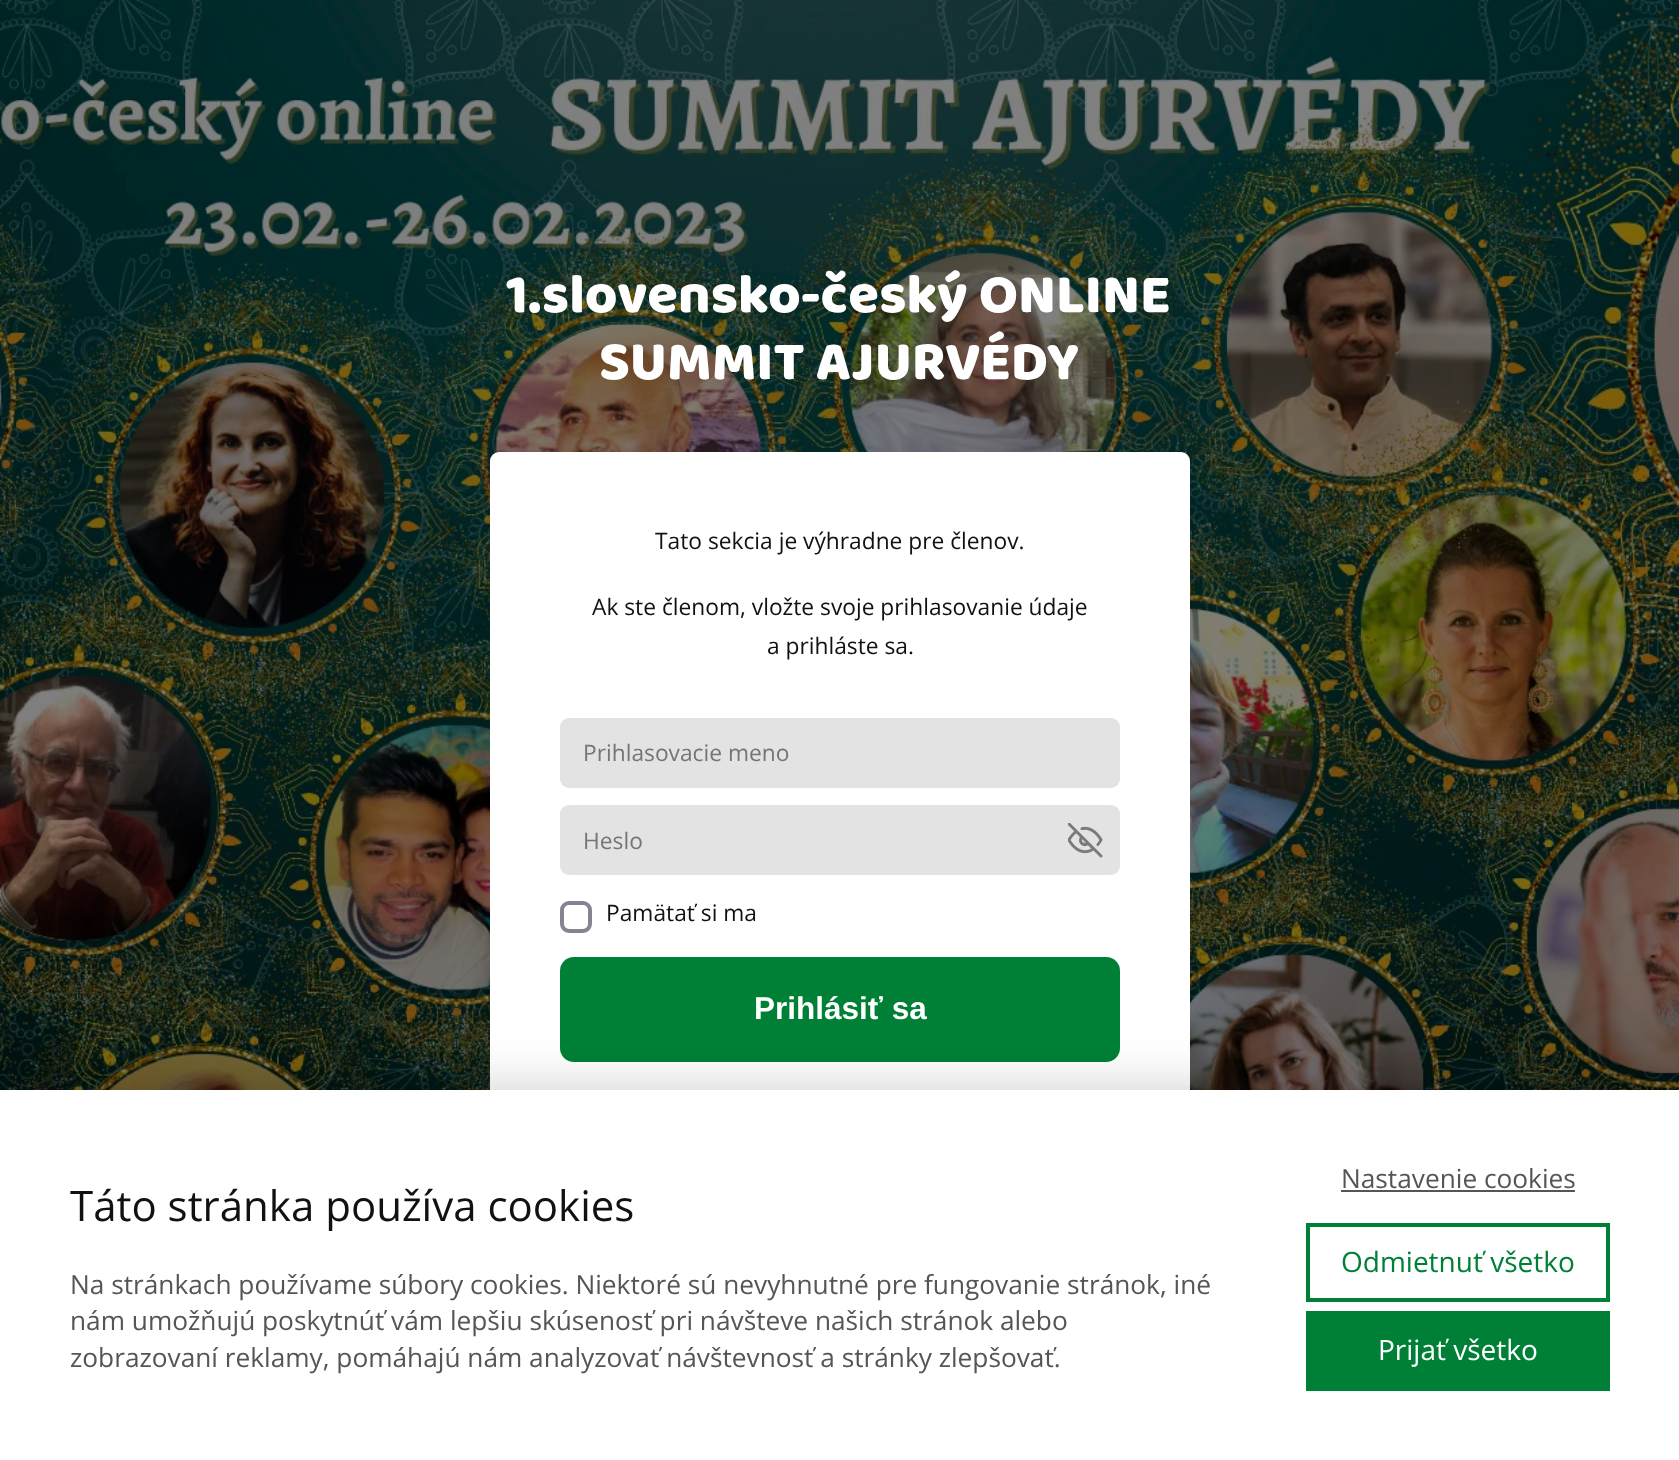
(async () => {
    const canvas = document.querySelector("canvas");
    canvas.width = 1679;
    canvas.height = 1460;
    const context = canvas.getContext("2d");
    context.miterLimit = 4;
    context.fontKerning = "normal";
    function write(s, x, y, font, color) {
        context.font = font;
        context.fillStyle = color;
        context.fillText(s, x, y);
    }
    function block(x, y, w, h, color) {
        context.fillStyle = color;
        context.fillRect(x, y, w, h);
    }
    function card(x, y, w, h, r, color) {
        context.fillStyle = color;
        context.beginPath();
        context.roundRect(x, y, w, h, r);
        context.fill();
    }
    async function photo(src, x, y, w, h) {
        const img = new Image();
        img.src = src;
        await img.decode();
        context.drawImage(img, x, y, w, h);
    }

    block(0, 0, 1679, 1460, "rgb(255, 255, 255)");
    await photo("media/1.png", 0, 0, 1679, 1090);
    write("1.slovensko-český ONLINE", 506, 312, "56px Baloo", "rgb(255, 255, 255)");
    write("SUMMIT AJURVÉDY", 599, 379, "56px Baloo", "rgb(255, 255, 255)");
    card(490, 452, 700, 745, 9, "rgb(255, 255, 255)");
    write("Tato sekcia je výhradne pre členov.", 655, 549, "22.75px Open Sans", "rgb(17, 17, 17)");
    write("Ak ste členom, vložte svoje prihlasovanie údaje", 592, 615, "22.75px Open Sans", "rgb(17, 17, 17)");
    write("a prihláste sa.", 767, 654, "22.75px Open Sans", "rgb(17, 17, 17)");
    card(560, 718, 560, 70, 9, "rgb(227, 227, 227)");
    write("Prihlasovacie meno", 583, 761, "22.75px Open Sans", "rgb(117, 117, 117)");
    card(560, 805, 560, 70, 9, "rgb(227, 227, 227)");
    write("Heslo", 583, 849, "22.75px Open Sans", "rgb(117, 117, 117)");
    await photo("media/2.png", 1068, 823, 35, 35);
    context.beginPath();
    context.roundRect(562, 903, 28, 28, 7);
    context.strokeStyle = "rgb(132, 132, 146)";
    context.lineWidth = 4;
    context.stroke();
    write("Pamätať si ma", 606, 921, "22.75px Open Sans", "rgb(17, 17, 17)");
    card(560, 957, 560, 105, 14, "rgb(0, 128, 55)");
    write("Prihlásiť sa", 754, 1019, "bold 31.5px Liberation Sans", "rgb(255, 255, 255)");
    context.fillStyle = "rgba(0, 0, 0, 0.2)";
    context.filter = "blur(26px)";
    context.beginPath();
    context.rect(0, 1090, 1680, 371);
    context.fill();
    context.filter = "none";
    block(0, 1090, 1679, 370, "rgb(255, 255, 255)");
    write("Táto stránka používa cookies", 70, 1221, "42px Open Sans", "rgb(17, 17, 17)");
    write("Na stránkach používame súbory cookies. Niektoré sú nevyhnutné pre fungovanie stránok, iné", 70, 1294, "26.25px Open Sans", "rgb(85, 85, 85)");
    write("nám umožňujú poskytnúť vám lepšiu skúsenosť pri návšteve našich stránok alebo", 70, 1330, "26.25px Open Sans", "rgb(85, 85, 85)");
    write("zobrazovaní reklamy, pomáhajú nám analyzovať návštevnosť a stránky zlepšovať.", 70, 1367, "26.25px Open Sans", "rgb(85, 85, 85)");
    write("Nastavenie cookies", 1341, 1188, "26.25px Open Sans", "rgb(85, 85, 85)");
    block(1341, 1190, 234, 2, "rgb(85, 85, 85)");
    context.strokeStyle = "rgb(0, 128, 55)";
    context.strokeRect(1308, 1225, 300, 75);
    write("Odmietnuť všetko", 1341, 1272, "28px Open Sans", "rgb(0, 128, 55)");
    block(1306, 1311, 304, 80, "rgb(0, 128, 55)");
    write("Prijať všetko", 1378, 1360, "28px Open Sans", "rgb(255, 255, 255)");
})();
